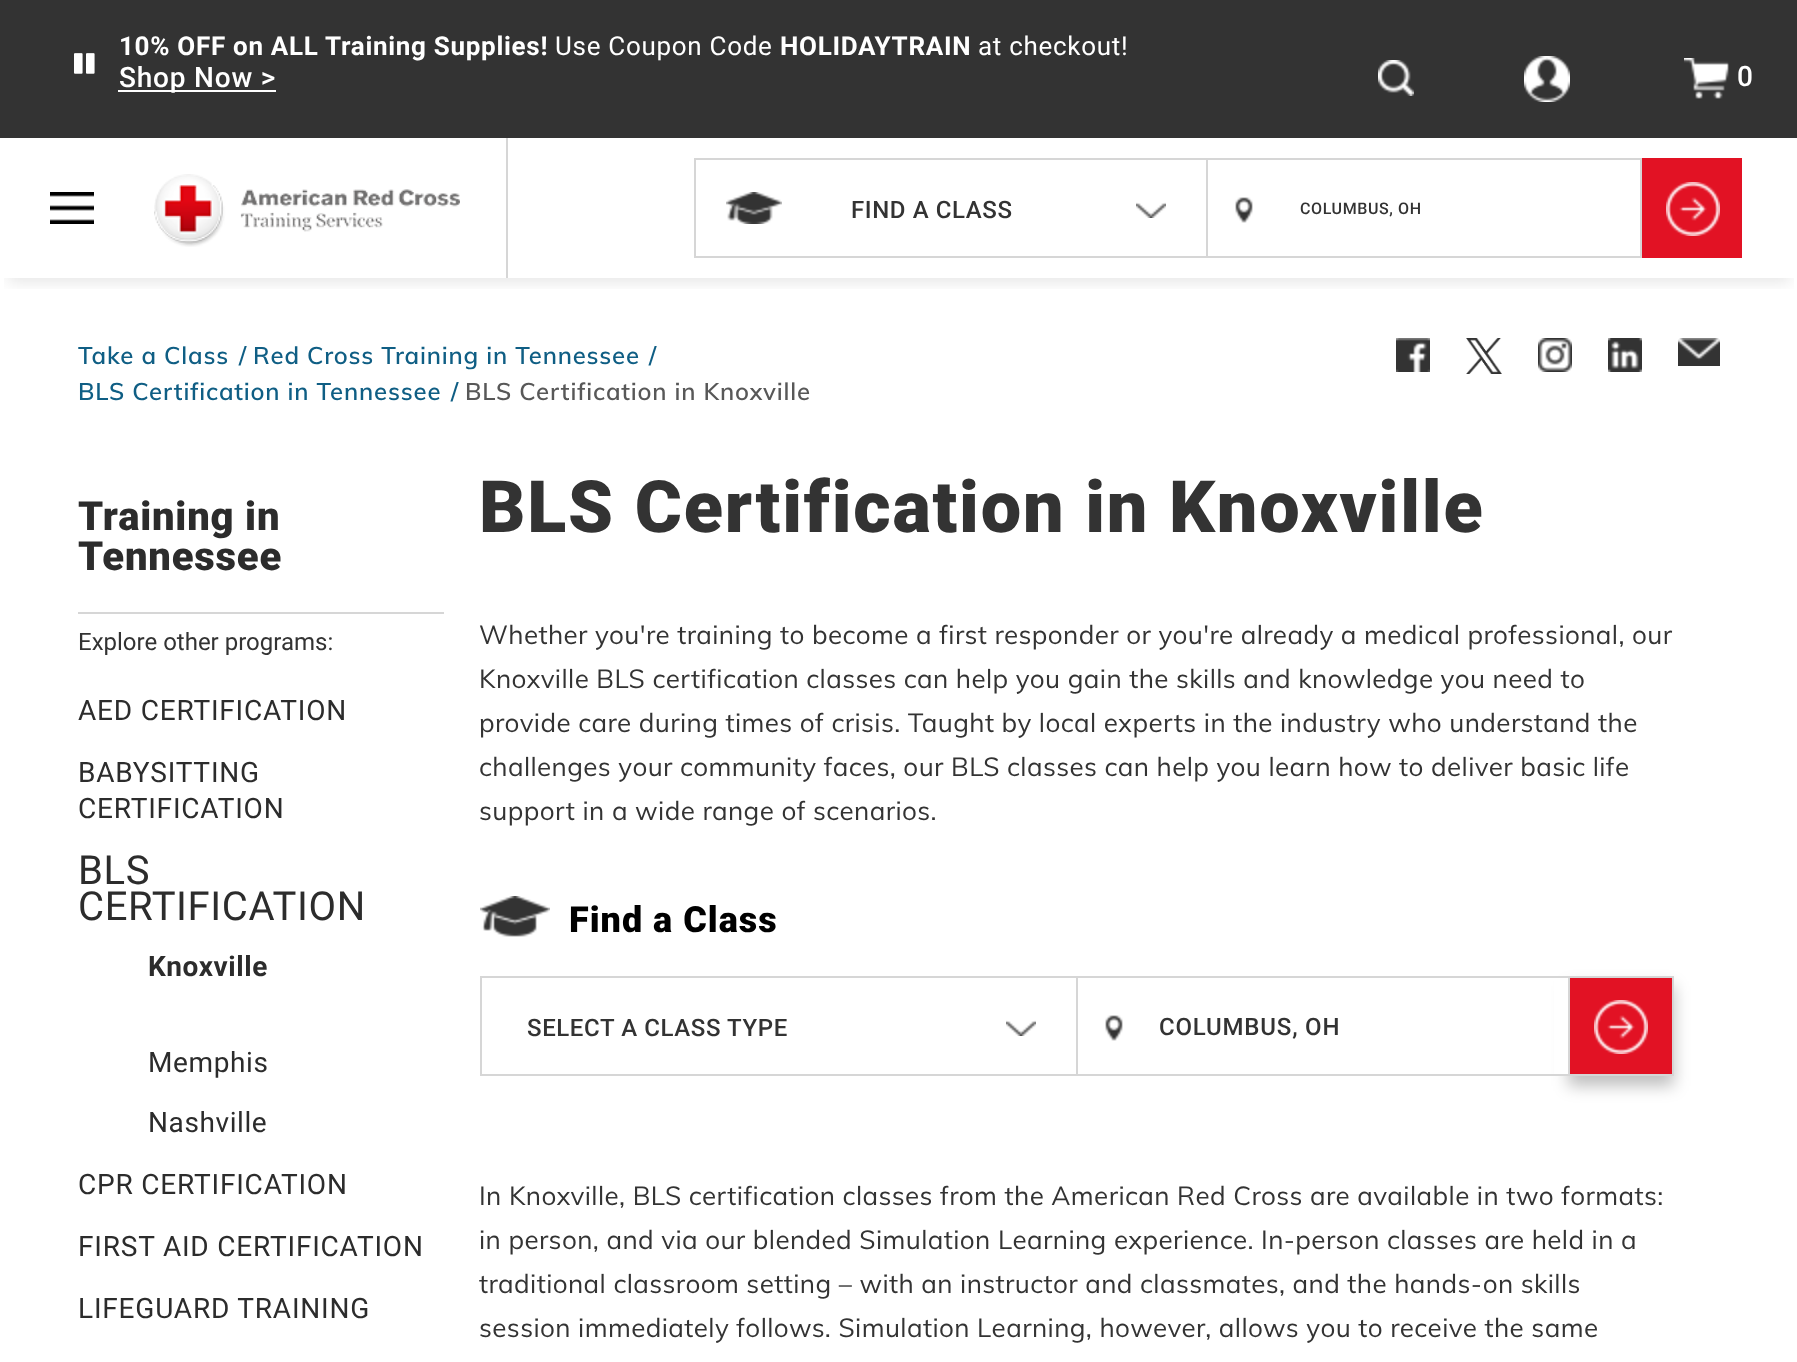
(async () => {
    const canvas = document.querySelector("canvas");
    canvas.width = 1797;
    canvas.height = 1362;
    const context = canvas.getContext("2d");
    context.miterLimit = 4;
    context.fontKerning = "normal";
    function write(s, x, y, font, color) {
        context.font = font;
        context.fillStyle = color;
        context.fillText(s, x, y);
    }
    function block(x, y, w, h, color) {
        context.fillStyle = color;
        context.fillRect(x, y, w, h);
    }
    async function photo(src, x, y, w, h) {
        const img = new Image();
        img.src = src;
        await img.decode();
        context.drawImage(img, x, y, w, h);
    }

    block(0, 0, 1797, 1362, "rgb(255, 255, 255)");
    block(0, 0, 1797, 138, "rgb(51, 51, 51)");
    await photo("media/1.png", 74, 53, 21, 21);
    context.letterSpacing = "0.7px";
    write("10% OFF on ALL Training Supplies!", 119, 55, "bold 26px Roboto", "rgb(255, 255, 255)");
    write("Use Coupon Code", 555, 55, "26px Roboto", "rgb(255, 255, 255)");
    write("HOLIDAYTRAIN", 780, 55, "bold 26px Roboto", "rgb(255, 255, 255)");
    write("at checkout!", 978, 55, "26px Roboto", "rgb(255, 255, 255)");
    block(118, 90, 158, 2, "rgb(255, 255, 255)");
    context.letterSpacing = "0.8px";
    write("Shop Now >", 119, 87, "500 28px Roboto", "rgb(255, 255, 255)");
    context.save();
    context.beginPath();
    context.rect(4, 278, 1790, 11);
    context.clip();
    context.fillStyle = "rgba(0, 0, 0, 0.1)";
    context.filter = "blur(8px)";
    context.beginPath();
    context.rect(8, 158, 1782, 124);
    context.fill();
    context.filter = "none";
    context.restore();
    await photo("media/2.png", 1378, 60, 36, 36);
    await photo("media/3.png", 1524, 56, 46, 46);
    await photo("media/4.png", 1684, 58, 45, 41);
    write("0", 1737, 86, "500 28px Roboto", "rgb(255, 255, 255)");
    await photo("media/5.png", 50, 192, 44, 32);
    await photo("media/6.png", 154, 174, 306, 73);
    block(506, 138, 2, 140, "rgb(214, 214, 214)");
    context.strokeStyle = "rgb(214, 214, 214)";
    context.lineWidth = 2;
    context.strokeRect(695, 159, 512, 98);
    await photo("media/7.png", 726, 192, 56, 32);
    context.letterSpacing = "0.6px";
    write("FIND A CLASS", 851, 218, "500 24px Roboto", "rgb(51, 51, 51)");
    await photo("media/8.png", 1136, 202, 30, 16);
    block(1208, 158, 434, 2, "rgb(214, 214, 214)");
    block(1640, 158, 2, 100, "rgb(214, 214, 214)");
    block(1208, 256, 434, 2, "rgb(214, 214, 214)");
    await photo("media/9.png", 1235, 197, 18, 26);
    write("COLUMBUS, OH", 1300, 214, "500 16px Roboto", "rgb(51, 51, 51)");
    block(1642, 158, 100, 100, "rgb(226, 18, 36)");
    await photo("media/10.png", 1666, 182, 54, 54);
    context.letterSpacing = "0.8px";
    write("Take a Class", 78, 364, "600 24px Muli", "rgb(15, 94, 132)");
    write("/", 239, 364, "600 24px Muli", "rgb(15, 94, 132)");
    write("Red Cross Training in Tennessee", 253, 364, "600 24px Muli", "rgb(15, 94, 132)");
    write("/", 649, 364, "600 24px Muli", "rgb(15, 94, 132)");
    write("BLS Certification in Tennessee", 78, 400, "600 24px Muli", "rgb(15, 94, 132)");
    write("/", 451, 400, "600 24px Muli", "rgb(15, 94, 132)");
    write("BLS Certification in Knoxville", 465, 400, "600 24px Muli", "rgb(88, 88, 88)");
    await photo("media/11.png", 1396, 338, 34, 34);
    await photo("media/12.png", 1466, 338, 36, 36);
    await photo("media/13.png", 1538, 338, 34, 34);
    await photo("media/14.png", 1608, 338, 34, 34);
    await photo("media/15.png", 1678, 338, 42, 28);
    block(78, 612, 366, 2, "rgb(214, 214, 214)");
    write("Training in", 78, 530, "900 40px Roboto", "rgb(44, 44, 44)");
    write("Tennessee", 78, 570, "900 40px Roboto", "rgb(44, 44, 44)");
    context.letterSpacing = "0px";
    write("Explore other programs:", 78, 650, "24px Roboto", "rgb(51, 51, 51)");
    context.letterSpacing = "0.8px";
    write("AED CERTIFICATION", 78, 720, "28px Roboto", "rgb(44, 44, 44)");
    write("BABYSITTING", 78, 782, "28px Roboto", "rgb(44, 44, 44)");
    write("CERTIFICATION", 78, 818, "28px Roboto", "rgb(44, 44, 44)");
    context.letterSpacing = "0.6px";
    write("BLS", 78, 884, "40px Roboto", "rgb(44, 44, 44)");
    write("CERTIFICATION", 78, 920, "40px Roboto", "rgb(44, 44, 44)");
    write("Knoxville", 148, 976, "bold 28px Roboto", "rgb(44, 44, 44)");
    write("Memphis", 148, 1072, "28px Roboto", "rgb(44, 44, 44)");
    write("Nashville", 148, 1132, "28px Roboto", "rgb(44, 44, 44)");
    context.letterSpacing = "0.8px";
    write("CPR CERTIFICATION", 78, 1194, "28px Roboto", "rgb(44, 44, 44)");
    write("FIRST AID CERTIFICATION", 78, 1256, "28px Roboto", "rgb(44, 44, 44)");
    write("LIFEGUARD TRAINING", 78, 1318, "28px Roboto", "rgb(44, 44, 44)");
    context.letterSpacing = "1.8px";
    write("BLS Certification in Knoxville", 479, 532, "900 72px Roboto", "rgb(51, 51, 51)");
    context.letterSpacing = "0.4px";
    write("Whether you're training to become a first responder or you're already a medical professional, our", 479, 644, "26px Muli", "rgb(51, 51, 51)");
    write("Knoxville BLS certification classes can help you gain the skills and knowledge you need to", 479, 688, "26px Muli", "rgb(51, 51, 51)");
    write("provide care during times of crisis. Taught by local experts in the industry who understand the", 479, 732, "26px Muli", "rgb(51, 51, 51)");
    write("challenges your community faces, our BLS classes can help you learn how to deliver basic life", 479, 776, "26px Muli", "rgb(51, 51, 51)");
    write("support in a wide range of scenarios.", 479, 820, "26px Muli", "rgb(51, 51, 51)");
    await photo("media/16.png", 480, 896, 70, 41);
    context.letterSpacing = "1px";
    write("Find a Class", 569, 932, "900 36px Roboto", "rgb(0, 0, 0)");
    context.strokeRect(481, 977, 596, 98);
    context.letterSpacing = "0.6px";
    write("SELECT A CLASS TYPE", 527, 1036, "500 24px Roboto", "rgb(51, 51, 51)");
    await photo("media/8.png", 1006, 1020, 30, 16);
    context.fillStyle = "rgba(0, 0, 0, 0.25)";
    context.filter = "blur(8px)";
    context.beginPath();
    context.rect(1568, 986, 106, 100);
    context.fill();
    context.filter = "none";
    block(1554, 978, 14, 96, "rgb(255, 255, 255)");
    block(1078, 976, 490, 2, "rgb(214, 214, 214)");
    block(1078, 1074, 490, 2, "rgb(214, 214, 214)");
    await photo("media/9.png", 1105, 1015, 18, 26);
    context.letterSpacing = "0.8px";
    write("COLUMBUS, OH", 1159, 1035, "500 24px Roboto", "rgb(51, 51, 51)");
    context.fillStyle = "rgb(226, 18, 36)";
    context.beginPath();
    context.rect(1569, 977, 104, 98);
    context.fill();
    context.stroke();
    await photo("media/10.png", 1594, 1000, 54, 54);
    context.letterSpacing = "0.4px";
    write("In Knoxville, BLS certification classes from the American Red Cross are available in two formats:", 479, 1205, "26px Muli", "rgb(51, 51, 51)");
    write("in person, and via our blended Simulation Learning experience. In-person classes are held in a", 479, 1249, "26px Muli", "rgb(51, 51, 51)");
    write("traditional classroom setting – with an instructor and classmates, and the hands-on skills", 479, 1293, "26px Muli", "rgb(51, 51, 51)");
    write("session immediately follows. Simulation Learning, however, allows you to receive the same", 479, 1337, "26px Muli", "rgb(51, 51, 51)");
})();
